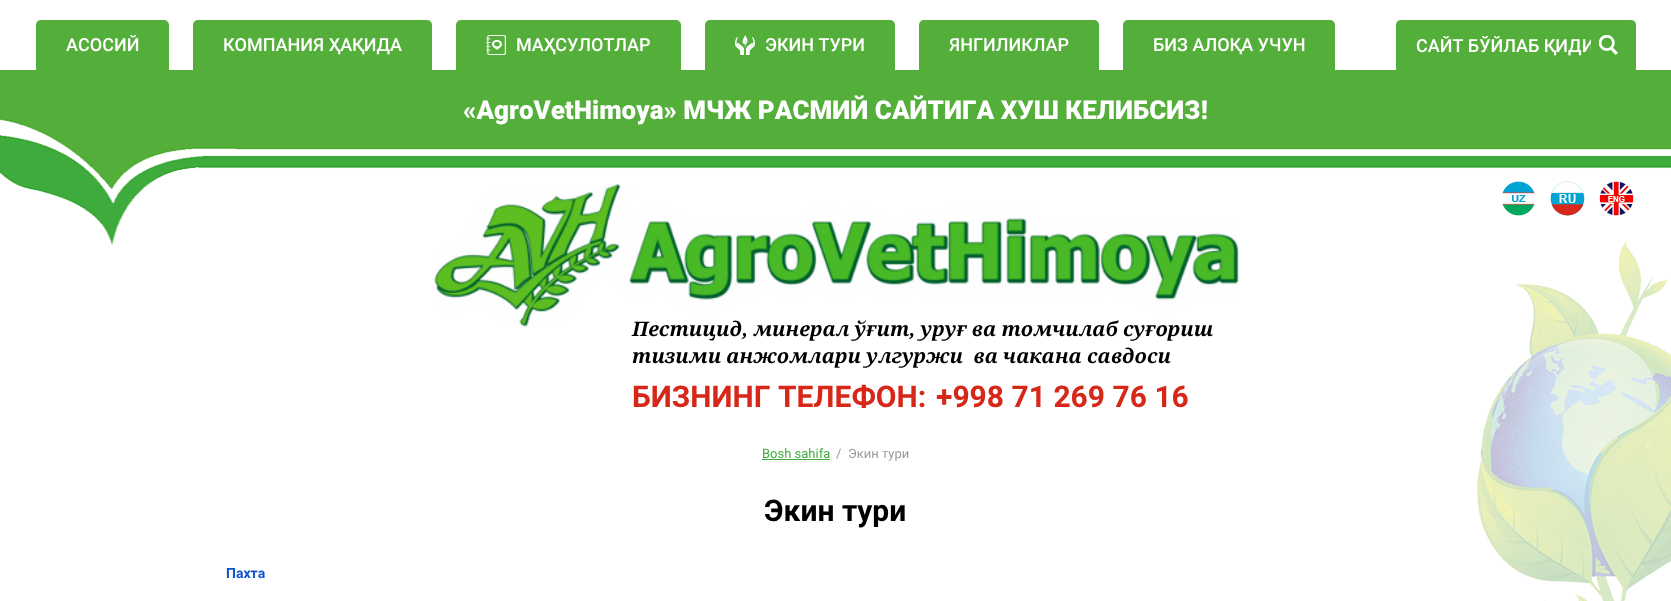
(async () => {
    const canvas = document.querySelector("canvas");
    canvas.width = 1671;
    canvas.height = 601;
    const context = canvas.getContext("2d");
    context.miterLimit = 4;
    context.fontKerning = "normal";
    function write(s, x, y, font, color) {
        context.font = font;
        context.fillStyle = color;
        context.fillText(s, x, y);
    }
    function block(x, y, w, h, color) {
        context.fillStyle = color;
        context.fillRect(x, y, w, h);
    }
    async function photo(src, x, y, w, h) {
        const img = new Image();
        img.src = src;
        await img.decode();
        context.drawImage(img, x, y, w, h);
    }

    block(0, 0, 1671, 601, "rgb(255, 255, 255)");
    await photo("media/1.png", 1477, 240, 194, 361);
    context.fillStyle = "rgb(84, 175, 58)";
    context.beginPath();
    context.roundRect(36, 20, 133, 50, [5, 5, 0, 0]);
    context.fill();
    write("АСОСИЙ", 66, 51, "500 18px Roboto", "rgb(255, 255, 255)");
    context.fillStyle = "rgb(84, 175, 58)";
    context.beginPath();
    context.roundRect(193, 20, 239, 50, [5, 5, 0, 0]);
    context.fill();
    write("КОМПАНИЯ ҲАҚИДА", 223, 51, "500 18px Roboto", "rgb(255, 255, 255)");
    context.fillStyle = "rgb(84, 175, 58)";
    context.beginPath();
    context.roundRect(456, 20, 225, 50, [5, 5, 0, 0]);
    context.fill();
    await photo("media/2.png", 486, 35, 20, 20);
    write("МАҲСУЛОТЛАР", 516, 51, "500 18px Roboto", "rgb(255, 255, 255)");
    context.fillStyle = "rgb(84, 175, 58)";
    context.beginPath();
    context.roundRect(705, 20, 190, 50, [5, 5, 0, 0]);
    context.fill();
    await photo("media/3.png", 735, 35, 20, 20);
    write("ЭКИН ТУРИ", 765, 51, "500 18px Roboto", "rgb(255, 255, 255)");
    context.fillStyle = "rgb(84, 175, 58)";
    context.beginPath();
    context.roundRect(919, 20, 180, 50, [5, 5, 0, 0]);
    context.fill();
    write("ЯНГИЛИКЛАР", 949, 51, "500 18px Roboto", "rgb(255, 255, 255)");
    context.fillStyle = "rgb(84, 175, 58)";
    context.beginPath();
    context.roundRect(1123, 20, 212, 50, [5, 5, 0, 0]);
    context.fill();
    write("БИЗ АЛОҚА УЧУН", 1153, 51, "500 18px Roboto", "rgb(255, 255, 255)");
    context.fillStyle = "rgb(84, 175, 58)";
    context.beginPath();
    context.roundRect(1396, 20, 240, 50, [5, 5, 0, 0]);
    context.fill();
    context.save();
    context.beginPath();
    context.rect(1416, 35, 175, 21);
    context.clip();
    write("САЙТ БЎЙЛАБ ҚИДИ", 1416, 52, "500 18px Roboto", "rgb(255, 255, 255)");
    context.restore();
    await photo("media/4.png", 1599, 35, 19, 20);
    await photo("media/5.png", 0, 70, 1671, 175);
    write("«AgroVetHimoya» МЧЖ РАСМИЙ САЙТИГА ХУШ КЕЛИБСИЗ!", 463, 119, "900 26px Roboto", "rgb(255, 255, 255)");
    await photo("media/6.png", 1502, 181, 33, 35);
    await photo("media/7.png", 1550, 181, 35, 35);
    await photo("media/8.png", 1599, 181, 35, 35);
    await photo("media/9.png", 434, 184, 806, 143);
    write("Пестицид, минерал ўғит, уруғ ва томчилаб суғориш", 632, 336, "italic bold 20px Noto Serif", "rgb(0, 0, 0)");
    write("тизими анжомлари улгуржи  ва чакана савдоси", 632, 363, "italic bold 20px Noto Serif", "rgb(0, 0, 0)");
    write("БИЗНИНГ ТЕЛЕФОН:", 632, 407, "bold 30px Roboto", "rgb(215, 39, 25)");
    write("+998 71 269 76 16", 936, 407, "bold 30px Roboto", "rgb(215, 39, 25)");
    write("Bosh sahifa", 762, 458, "13px Roboto", "rgb(63, 171, 60)");
    block(762, 459, 68, 1, "rgb(63, 171, 60)");
    write("/", 836, 458, "13px Roboto", "rgb(153, 153, 153)");
    write("Экин тури", 848, 458, "13px Roboto", "rgb(153, 153, 153)");
    write("Экин тури", 764, 521, "bold 30px Roboto", "rgb(0, 0, 0)");
    write("Пахта", 226, 578, "bold 14px Roboto", "rgb(17, 85, 204)");
})();
